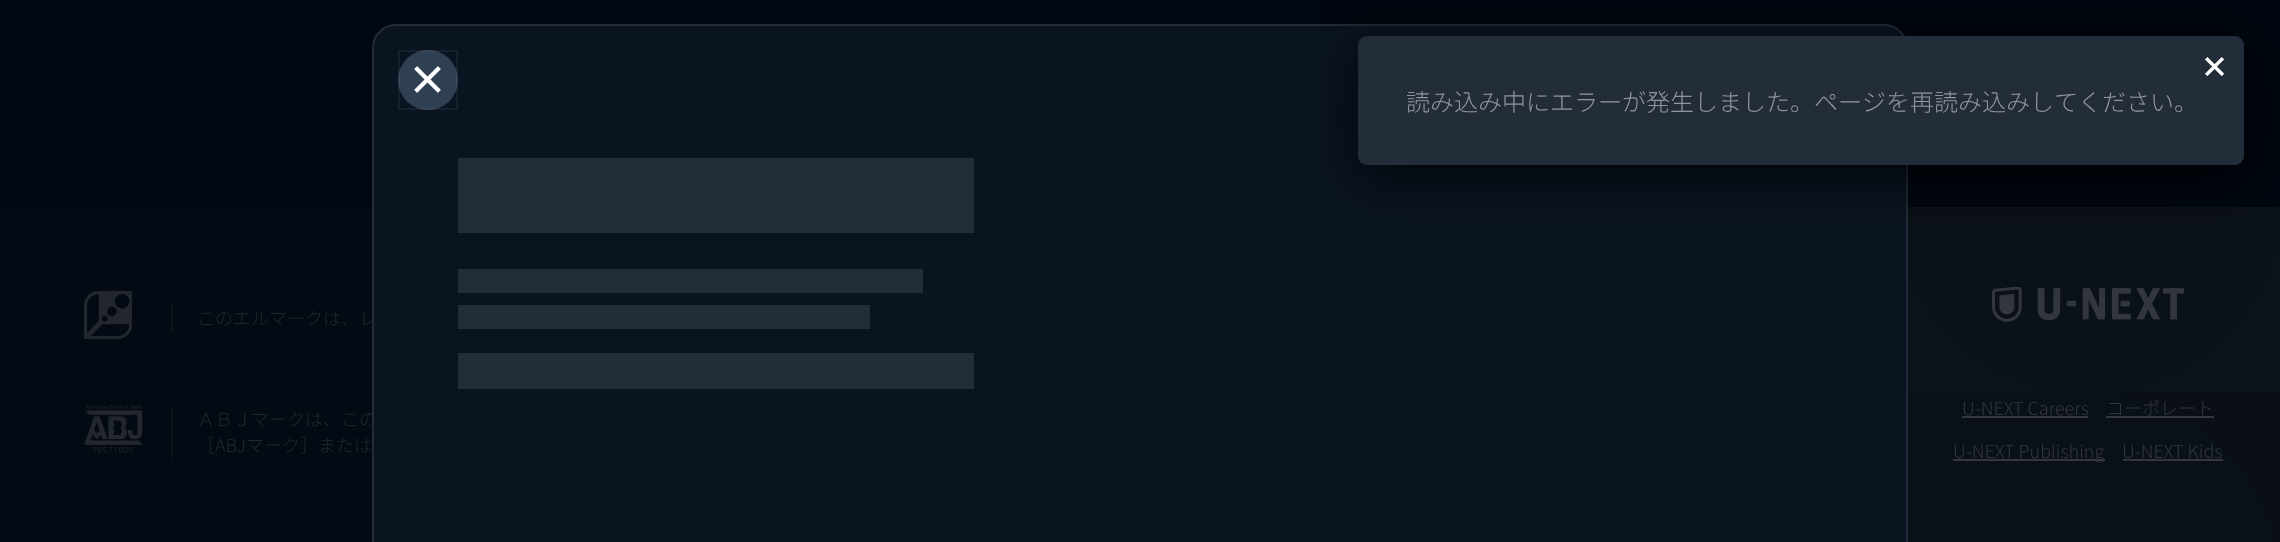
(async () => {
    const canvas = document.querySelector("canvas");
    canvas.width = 2280;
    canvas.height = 542;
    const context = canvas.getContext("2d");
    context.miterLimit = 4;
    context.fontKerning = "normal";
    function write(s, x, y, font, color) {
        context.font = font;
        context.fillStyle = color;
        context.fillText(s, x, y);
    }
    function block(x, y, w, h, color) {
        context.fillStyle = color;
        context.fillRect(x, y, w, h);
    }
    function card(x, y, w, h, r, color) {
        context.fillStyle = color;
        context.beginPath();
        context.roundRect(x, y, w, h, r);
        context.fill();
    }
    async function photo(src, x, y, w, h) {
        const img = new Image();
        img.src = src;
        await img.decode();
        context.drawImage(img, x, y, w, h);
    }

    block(0, 0, 2280, 542, "rgb(1, 7, 16)");
    block(0, 207, 372, 335, "rgb(4, 10, 19)");
    write("このエルマークは、レ", 197, 325, "300 18px Noto Sans JP", "rgb(34, 39, 46)");
    write("ＡＢＪマークは、この", 197, 426, "300 18px Noto Sans JP", "rgb(34, 39, 46)");
    block(2089, 392, 191, 150, "rgb(10, 15, 23)");
    context.fillStyle = "rgb(10, 16, 24)";
    context.beginPath();
    context.moveTo(2280, 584);
    context.bezierCurveTo(2280, 477, 2194, 392, 2088, 392);
    context.lineTo(1896, 392);
    context.lineTo(1896, 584);
    context.closePath();
    context.fill("evenodd");
    block(1908, 207, 372, 185, "rgb(12, 18, 26)");
    context.save();
    context.beginPath();
    context.rect(1896, 207, 384, 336);
    context.clip();
    context.fillStyle = "rgb(11, 17, 24)";
    context.beginPath();
    context.moveTo(2088, 392);
    context.bezierCurveTo(1982, 392, 1896, 306, 1896, 200);
    context.lineTo(2280, 200);
    context.bezierCurveTo(2280, 306, 2194, 392, 2088, 392);
    context.closePath();
    context.fill("evenodd");
    context.restore();
    context.fillStyle = "rgb(10, 20, 33)";
    context.beginPath();
    context.moveTo(396, 24);
    context.lineTo(1884, 24);
    context.bezierCurveTo(1897.5, 24, 1908, 34.5, 1908, 48);
    context.lineTo(1908, 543);
    context.lineTo(372, 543);
    context.lineTo(372, 48);
    context.bezierCurveTo(372, 34.5, 382.5, 24, 396, 24);
    context.closePath();
    context.fill();
    context.beginPath();
    context.roundRect(373, 25, 1534, 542, 23);
    context.strokeStyle = "rgba(255, 255, 255, 0.1)";
    context.lineWidth = 2;
    context.stroke();
    context.save();
    context.beginPath();
    context.rect(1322, 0, 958, 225);
    context.clip();
    context.fillStyle = "rgba(0, 0, 0, 0.75)";
    context.filter = "blur(30px)";
    context.beginPath();
    context.roundRect(1358, 48, 886, 129, 9);
    context.fill();
    context.filter = "none";
    context.restore();
    card(1358, 36, 886, 129, 9, "rgb(35, 45, 58)");
    await photo("media/1.png", 2205, 57, 19, 19);
    write("読み込み中にエラーが発生しました。ページを再読み込みしてください。", 1406, 111, "300 24px Noto Sans JP", "rgb(145, 150, 157)");
    context.fillStyle = "rgb(48, 64, 83)";
    context.beginPath();
    context.arc(428, 80, 30, 0, Math.PI * 2);
    context.fill();
    context.strokeStyle = "rgba(255, 255, 255, 0.05)";
    context.strokeRect(399, 51, 58, 58);
    await photo("media/2.png", 414, 66, 27, 27);
    block(458, 158, 516, 75, "rgb(35, 45, 58)");
    block(458, 269, 465, 24, "rgb(35, 45, 58)");
    block(458, 305, 412, 24, "rgb(35, 45, 58)");
    block(458, 353, 516, 36, "rgb(35, 45, 58)");
    await photo("media/3.png", 84, 291, 48, 48);
    block(171, 306, 2, 26, "rgb(13, 19, 27)");
    await photo("media/4.png", 84, 405, 59, 48);
    block(171, 407, 2, 51, "rgb(13, 19, 27)");
    write("［ABJマーク］または", 197, 452, "300 18px Noto Sans JP", "rgb(34, 39, 46)");
    await photo("media/5.png", 1992, 287, 192, 35);
    write("U-NEXT Careers", 1962, 415, "300 18px Noto Sans JP", "rgb(51, 55, 61)");
    block(1962, 416, 126, 2, "rgb(51, 55, 61)");
    write("コーポレート", 2106, 415, "300 18px Noto Sans JP", "rgb(51, 55, 61)");
    block(2106, 416, 108, 2, "rgba(65, 68, 74, 0.75)");
    block(1953, 459, 152, 2, "rgb(51, 55, 61)");
    write("U-NEXT Publishing", 1953, 458, "300 18px Noto Sans JP", "rgb(51, 55, 61)");
    write("U-NEXT Kids", 2122, 458, "300 18px Noto Sans JP", "rgb(51, 55, 61)");
    block(2123, 459, 100, 2, "rgb(51, 55, 61)");
})();
